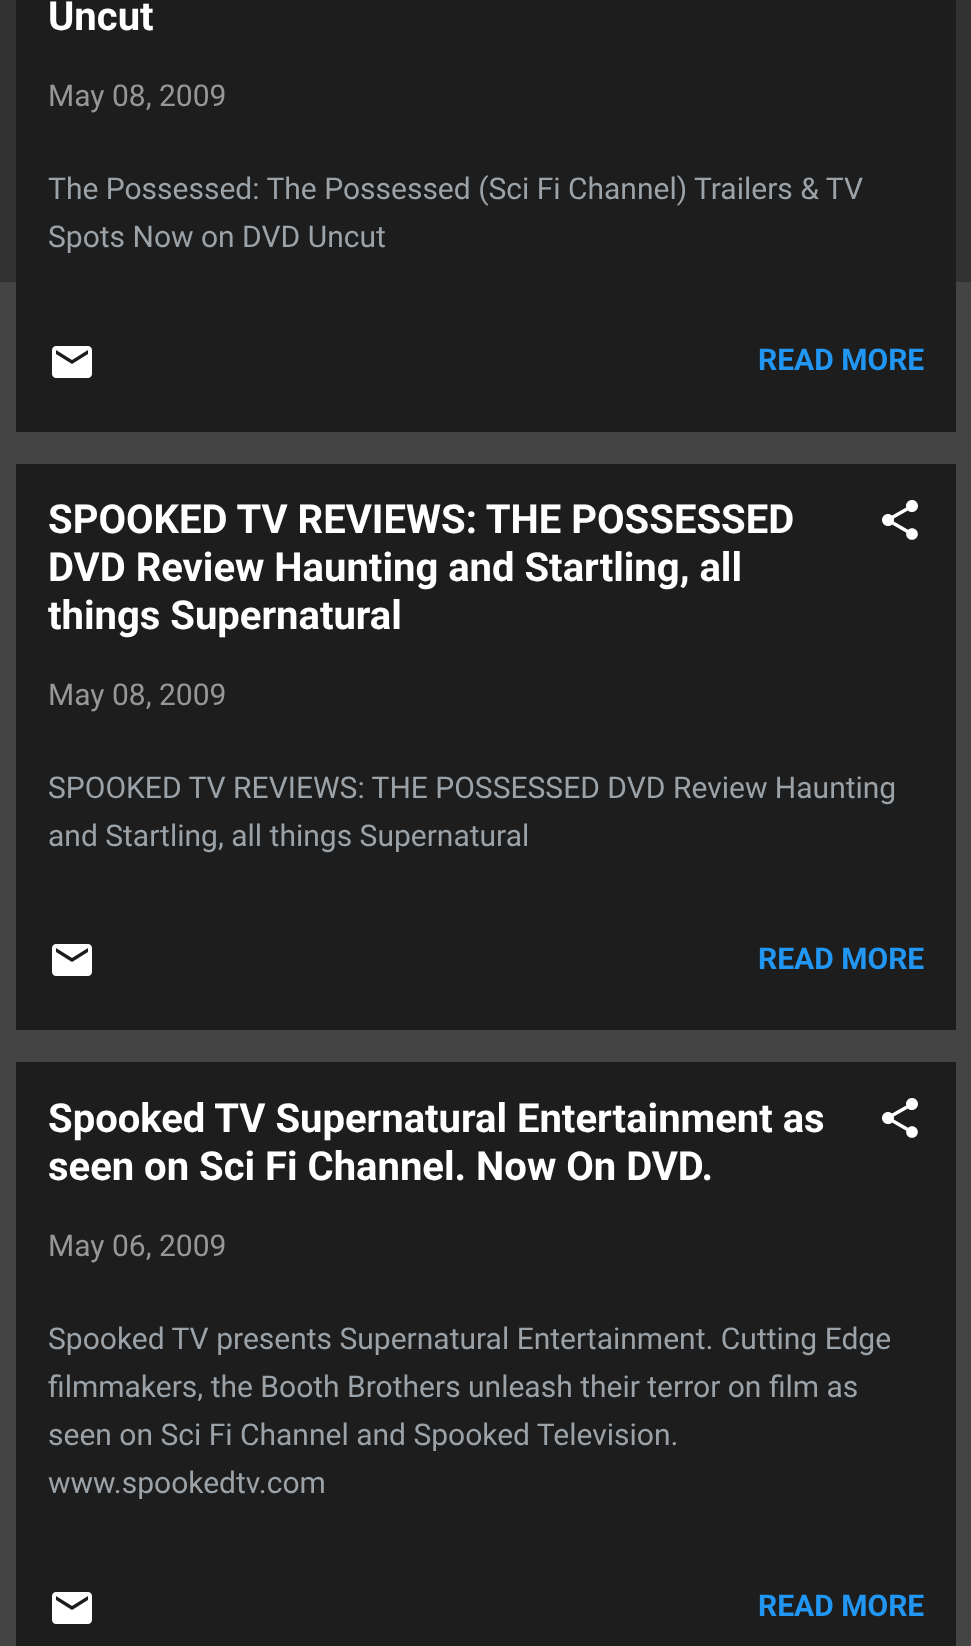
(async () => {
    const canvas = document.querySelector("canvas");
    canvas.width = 971;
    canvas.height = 1646;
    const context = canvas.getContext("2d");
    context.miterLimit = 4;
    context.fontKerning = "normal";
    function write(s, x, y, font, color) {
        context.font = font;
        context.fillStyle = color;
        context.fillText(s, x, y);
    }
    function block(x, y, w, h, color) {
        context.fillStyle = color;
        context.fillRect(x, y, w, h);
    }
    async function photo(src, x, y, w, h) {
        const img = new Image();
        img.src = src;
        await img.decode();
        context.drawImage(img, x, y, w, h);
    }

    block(0, 0, 971, 1646, "rgb(68, 68, 68)");
    block(0, 0, 971, 282, "rgb(50, 50, 50)");
    block(16, 0, 940, 432, "rgb(29, 29, 29)");
    write("Uncut", 48, 30, "bold 40px Roboto", "rgb(255, 255, 255)");
    write("May 08, 2009", 48, 106, "30px Roboto", "rgb(151, 151, 151)");
    write("The Possessed: The Possessed (Sci Fi Channel) Trailers & TV", 48, 199, "30px Roboto", "rgb(155, 162, 168)");
    write("Spots Now on DVD Uncut", 48, 247, "30px Roboto", "rgb(155, 162, 168)");
    await photo("media/1.png", 52, 346, 40, 32);
    write("READ MORE", 758, 370, "bold 30px Roboto", "rgb(33, 150, 243)");
    block(16, 464, 940, 566, "rgb(29, 29, 29)");
    write("SPOOKED TV REVIEWS: THE POSSESSED", 48, 533, "bold 40px Roboto", "rgb(255, 255, 255)");
    write("DVD Review Haunting and Startling, all", 48, 581, "bold 40px Roboto", "rgb(255, 255, 255)");
    write("things Supernatural", 48, 629, "bold 40px Roboto", "rgb(255, 255, 255)");
    await photo("media/2.png", 882, 500, 36, 40);
    write("May 08, 2009", 48, 705, "30px Roboto", "rgb(151, 151, 151)");
    write("SPOOKED TV REVIEWS: THE POSSESSED DVD Review Haunting", 48, 798, "30px Roboto", "rgb(155, 162, 168)");
    write("and Startling, all things Supernatural", 48, 846, "30px Roboto", "rgb(155, 162, 168)");
    await photo("media/1.png", 52, 944, 40, 32);
    write("READ MORE", 758, 969, "bold 30px Roboto", "rgb(33, 150, 243)");
    block(16, 1062, 940, 584, "rgb(29, 29, 29)");
    write("Spooked TV Supernatural Entertainment as", 48, 1132, "bold 40px Roboto", "rgb(255, 255, 255)");
    write("seen on Sci Fi Channel. Now On DVD.", 48, 1180, "bold 40px Roboto", "rgb(255, 255, 255)");
    await photo("media/3.png", 882, 1098, 36, 40);
    write("May 06, 2009", 48, 1256, "30px Roboto", "rgb(151, 151, 151)");
    write("Spooked TV presents Supernatural Entertainment. Cutting Edge", 48, 1349, "30px Roboto", "rgb(155, 162, 168)");
    write("filmmakers, the Booth Brothers unleash their terror on film as", 48, 1397, "30px Roboto", "rgb(155, 162, 168)");
    write("seen on Sci Fi Channel and Spooked Television.", 48, 1445, "30px Roboto", "rgb(155, 162, 168)");
    write("www.spookedtv.com", 48, 1493, "30px Roboto", "rgb(155, 162, 168)");
    await photo("media/4.png", 52, 1592, 40, 32);
    write("READ MORE", 758, 1616, "bold 30px Roboto", "rgb(33, 150, 243)");
})();
